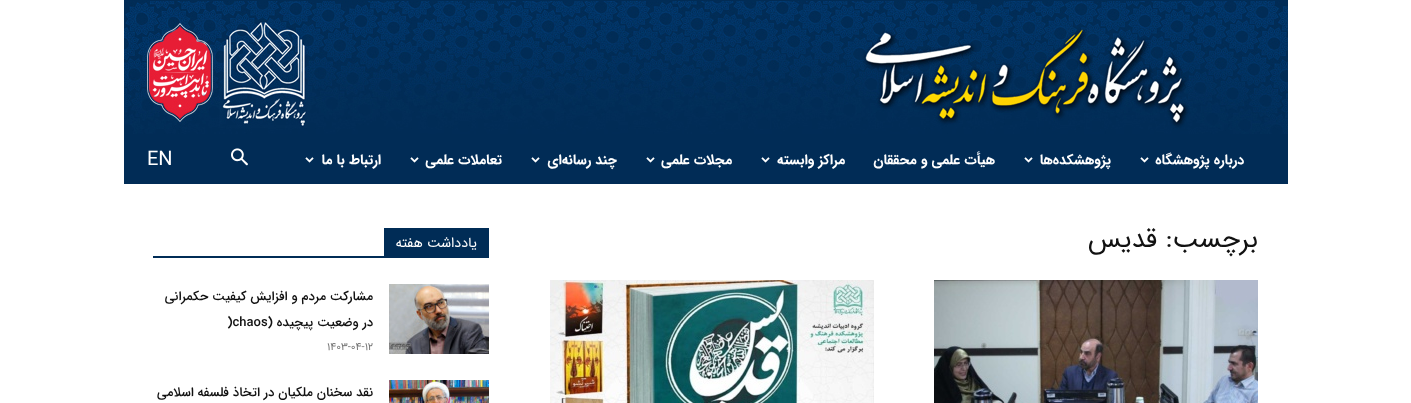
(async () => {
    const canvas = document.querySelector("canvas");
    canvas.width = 1411;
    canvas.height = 403;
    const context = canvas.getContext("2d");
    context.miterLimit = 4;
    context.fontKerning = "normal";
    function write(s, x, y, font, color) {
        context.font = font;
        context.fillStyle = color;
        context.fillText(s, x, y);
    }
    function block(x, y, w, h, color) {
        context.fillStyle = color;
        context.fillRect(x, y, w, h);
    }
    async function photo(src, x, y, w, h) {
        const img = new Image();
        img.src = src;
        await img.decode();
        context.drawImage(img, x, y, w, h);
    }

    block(0, 0, 1411, 403, "rgb(255, 255, 255)");
    block(124, 0, 1164, 1, "rgb(1, 44, 86)");
    block(124, 134, 1164, 50, "rgb(1, 44, 86)");
    await photo("media/1.png", 124, 1, 1164, 133);
    context.direction = "rtl";
    write("درباره پژوهشگاه", 1244, 164, "bold 14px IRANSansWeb", "rgb(255, 255, 255)");
    await photo("media/2.png", 1140, 157, 9, 6);
    write("پژوهشکده‌ها", 1111, 164, "bold 14px IRANSansWeb", "rgb(255, 255, 255)");
    await photo("media/2.png", 1024, 157, 9, 6);
    write("هیأت علمی و محققان", 995, 164, "bold 14px IRANSansWeb", "rgb(255, 255, 255)");
    write("مراکز وابسته", 845, 164, "bold 14px IRANSansWeb", "rgb(255, 255, 255)");
    await photo("media/2.png", 761, 157, 9, 6);
    write("مجلات علمی", 732, 164, "bold 14px IRANSansWeb", "rgb(255, 255, 255)");
    await photo("media/2.png", 646, 157, 9, 6);
    write("چند رسانه‌ای", 617, 164, "bold 14px IRANSansWeb", "rgb(255, 255, 255)");
    await photo("media/2.png", 531, 157, 9, 6);
    write("تعاملات علمی", 502, 164, "bold 14px IRANSansWeb", "rgb(255, 255, 255)");
    await photo("media/2.png", 410, 157, 9, 6);
    write("ارتباط با ما", 381, 164, "bold 14px IRANSansWeb", "rgb(255, 255, 255)");
    await photo("media/2.png", 305, 157, 9, 6);
    await photo("media/3.png", 231, 148, 17, 18);
    context.direction = "ltr";
    write("EN", 147, 165, "20px IRANSansWeb", "rgb(255, 255, 255)");
    context.direction = "rtl";
    write("برچسب: قدیس", 1258, 247, "27px IRANSansWeb", "rgb(17, 17, 17)");
    await photo("media/4.png", 934, 280, 324, 123);
    await photo("media/5.png", 550, 280, 324, 123);
    block(153, 256, 336, 2, "rgb(0, 44, 86)");
    block(384, 228, 105, 28, "rgb(0, 44, 86)");
    write("یادداشت هفته", 477, 247, "14px IRANSansWeb", "rgb(255, 255, 255)");
    await photo("media/6.png", 389, 284, 100, 70);
    write("مشارکت مردم و افزایش کیفیت حکمرانی", 373, 300, "500 13px IRANSansWeb", "rgb(17, 17, 17)");
    write("در وضعیت پیچیده (", 373, 326, "500 13px IRANSansWeb", "rgb(17, 17, 17)");
    context.direction = "ltr";
    write(")chaos", 227, 326, "500 13px IRANSansWeb", "rgb(17, 17, 17)");
    write("۱۴۰۳-۰۴-۱۲", 327, 350, "11px IRANSansWeb", "rgb(118, 118, 118)");
    await photo("media/7.png", 389, 380, 100, 23);
    context.direction = "rtl";
    write("نقد سخنان ملکیان در اتخاذ فلسفه اسلامی", 373, 396, "500 13px IRANSansWeb", "rgb(17, 17, 17)");
})();
